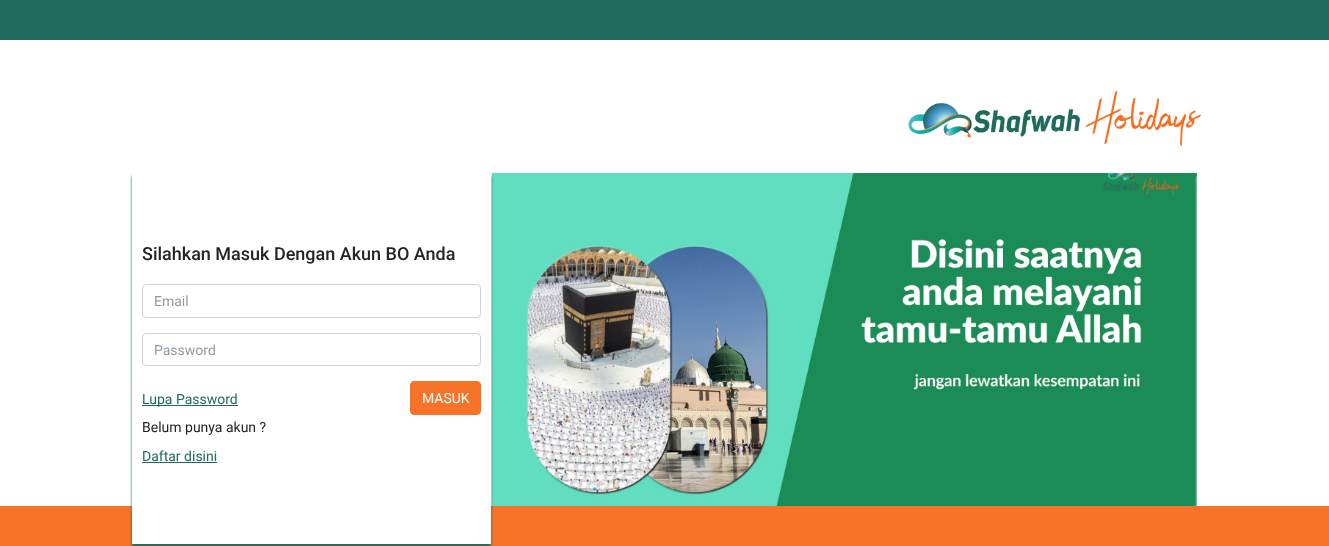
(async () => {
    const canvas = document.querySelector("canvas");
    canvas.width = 1329;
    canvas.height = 546;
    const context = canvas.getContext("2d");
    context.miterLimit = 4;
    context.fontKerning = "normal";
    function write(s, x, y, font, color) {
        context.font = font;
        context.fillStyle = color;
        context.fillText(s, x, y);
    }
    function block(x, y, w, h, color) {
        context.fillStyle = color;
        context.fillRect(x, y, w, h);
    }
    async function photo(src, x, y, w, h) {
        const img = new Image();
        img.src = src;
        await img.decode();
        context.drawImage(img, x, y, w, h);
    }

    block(0, 0, 1329, 546, "rgb(255, 255, 255)");
    block(0, 0, 1329, 40, "rgb(32, 106, 93)");
    await photo("media/1.png", 908, 90, 293, 56);
    await photo("media/2.png", 492, 173, 705, 333);
    context.save();
    context.beginPath();
    context.rect(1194, 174, 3, 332);
    context.clip();
    context.fillStyle = "rgb(242, 255, 255)";
    context.filter = "blur(1.5px)";
    context.beginPath();
    context.rect(1197, 176, 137, 350);
    context.fill();
    context.filter = "none";
    context.restore();
    block(0, 506, 1329, 40, "rgb(248, 115, 40)");
    context.fillStyle = "rgb(32, 106, 93)";
    context.filter = "blur(1.5px)";
    context.beginPath();
    context.rect(132, 176, 359, 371);
    context.fill();
    context.filter = "none";
    block(132, 173, 359, 371, "rgb(255, 255, 255)");
    write("Silahkan Masuk Dengan Akun BO Anda", 142, 260, "500 18px Roboto", "rgb(33, 37, 41)");
    context.beginPath();
    context.roundRect(142.5, 284.5, 338, 33, 3.5);
    context.strokeStyle = "rgb(206, 212, 218)";
    context.stroke();
    write("Email", 154, 306, "14px Roboto", "rgb(147, 155, 162)");
    context.beginPath();
    context.roundRect(142.5, 333.5, 338, 32, 3.5);
    context.stroke();
    write("Password", 154, 355, "14px Roboto", "rgb(147, 155, 162)");
    block(142, 405, 96, 1, "rgb(32, 106, 93)");
    write("Lupa Password", 142, 404, "14px Roboto", "rgb(32, 106, 93)");
    write("Belum punya akun ?", 142, 432, "14px Roboto", "rgb(33, 37, 41)");
    write("Daftar disini", 142, 461, "14px Roboto", "rgb(32, 106, 93)");
    block(142, 462, 75, 1, "rgb(32, 106, 93)");
    context.fillStyle = "rgb(248, 115, 40)";
    context.beginPath();
    context.roundRect(410.5, 381.5, 70, 33, 3.5);
    context.fill();
    context.strokeStyle = "rgb(248, 115, 40)";
    context.stroke();
    write("MASUK", 422, 403, "14px Roboto", "rgb(255, 255, 255)");
})();
